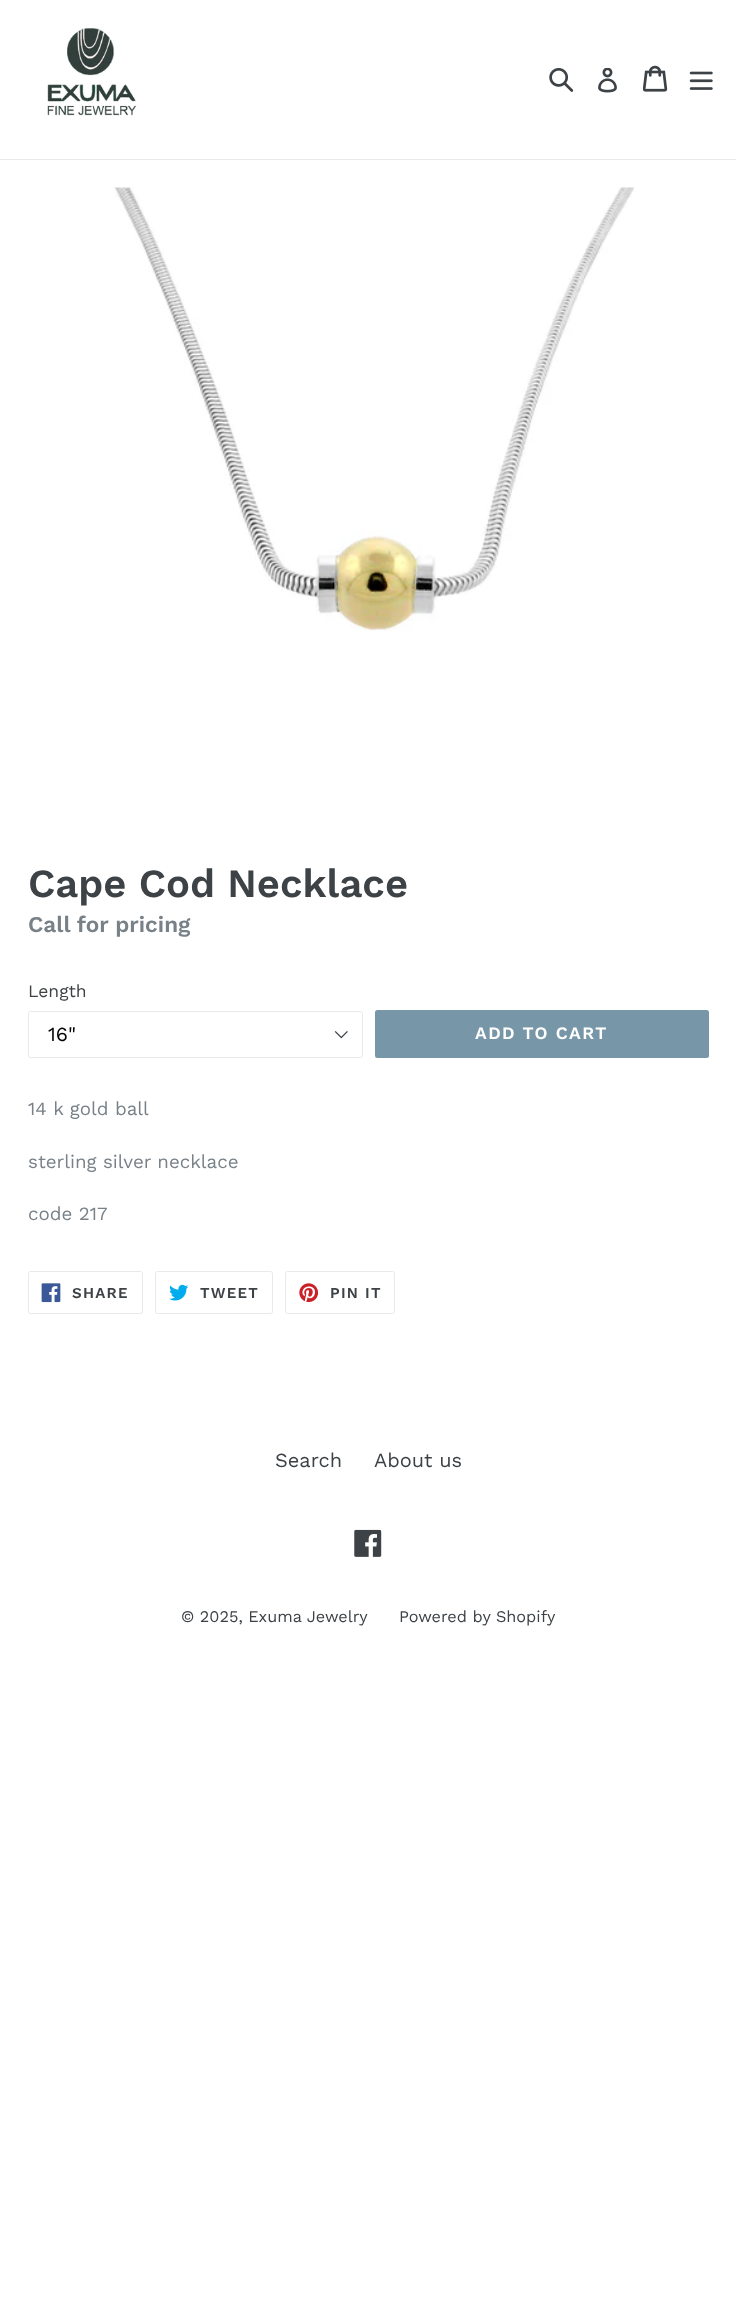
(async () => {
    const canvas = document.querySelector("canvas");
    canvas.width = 736;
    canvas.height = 2310;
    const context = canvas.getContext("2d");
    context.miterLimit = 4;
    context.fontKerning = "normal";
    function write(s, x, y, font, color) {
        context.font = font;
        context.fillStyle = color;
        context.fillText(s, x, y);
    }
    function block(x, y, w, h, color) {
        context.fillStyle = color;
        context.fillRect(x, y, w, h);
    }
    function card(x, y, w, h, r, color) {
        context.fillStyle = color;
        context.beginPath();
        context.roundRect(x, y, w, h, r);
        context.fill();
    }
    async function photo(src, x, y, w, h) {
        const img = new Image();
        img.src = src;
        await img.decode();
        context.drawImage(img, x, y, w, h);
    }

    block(0, 0, 736, 2310, "rgb(255, 255, 255)");
    block(0, 159, 736, 1, "rgb(232, 233, 235)");
    await photo("media/1.png", 47, 28, 90, 88);
    await photo("media/2.png", 549, 68, 25, 24);
    await photo("media/3.png", 598, 68, 19, 25);
    await photo("media/4.png", 643, 65, 25, 27);
    await photo("media/5.png", 689, 71, 24, 19);
    await photo("media/6.png", 114, 187, 521, 444);
    write("Cape Cod Necklace", 28, 897, "600 40px Work Sans", "rgb(61, 66, 70)");
    write("Call for pricing", 28, 932, "600 22.5px Work Sans", "rgb(120, 129, 136)");
    write("Length", 28, 997, "17.5px Work Sans", "rgb(61, 66, 70)");
    await photo("media/7.png", 334, 1031, 14, 8);
    context.beginPath();
    context.roundRect(28.5, 1011.5, 334, 46, 2);
    context.strokeStyle = "rgb(232, 233, 235)";
    context.stroke();
    write("16\"", 48, 1041, "20px Work Sans", "rgb(0, 0, 0)");
    card(375, 1010, 334, 48, 2.5, "rgb(119, 150, 168)");
    context.letterSpacing = "1.4px";
    write("ADD TO CART", 475, 1039, "600 17.5px Work Sans", "rgb(255, 255, 255)");
    context.letterSpacing = "0px";
    write("14 k gold ball", 28, 1115, "18.75px Work Sans", "rgb(120, 129, 136)");
    write("sterling silver necklace", 28, 1168, "18.75px Work Sans", "rgb(120, 129, 136)");
    write("code 217", 28, 1220, "18.75px Work Sans", "rgb(120, 129, 136)");
    context.beginPath();
    context.roundRect(28.5, 1271.5, 114, 42, 2);
    context.stroke();
    await photo("media/8.png", 41, 1283, 20, 20);
    context.letterSpacing = "1.25px";
    write("SHARE", 72, 1298, "600 15px Work Sans", "rgb(61, 66, 70)");
    context.beginPath();
    context.roundRect(155.5, 1271.5, 117, 42, 2);
    context.stroke();
    await photo("media/9.png", 169, 1284, 20, 17);
    write("TWEET", 200, 1298, "600 15px Work Sans", "rgb(61, 66, 70)");
    context.beginPath();
    context.roundRect(285.5, 1271.5, 109, 42, 2);
    context.stroke();
    await photo("media/10.png", 299, 1283, 20, 20);
    write("PIN IT", 330, 1298, "600 15px Work Sans", "rgb(61, 66, 70)");
    context.letterSpacing = "0px";
    write("Search", 275, 1467, "20px Work Sans", "rgb(61, 66, 70)");
    write("About us", 374, 1467, "20px Work Sans", "rgb(61, 66, 70)");
    await photo("media/11.png", 354, 1529, 28, 28);
    write("© 2025, Exuma Jewelry", 181, 1622, "16.25px Work Sans", "rgb(61, 66, 70)");
    write("Powered by Shopify", 399, 1622, "16.25px Work Sans", "rgb(61, 66, 70)");
})();
